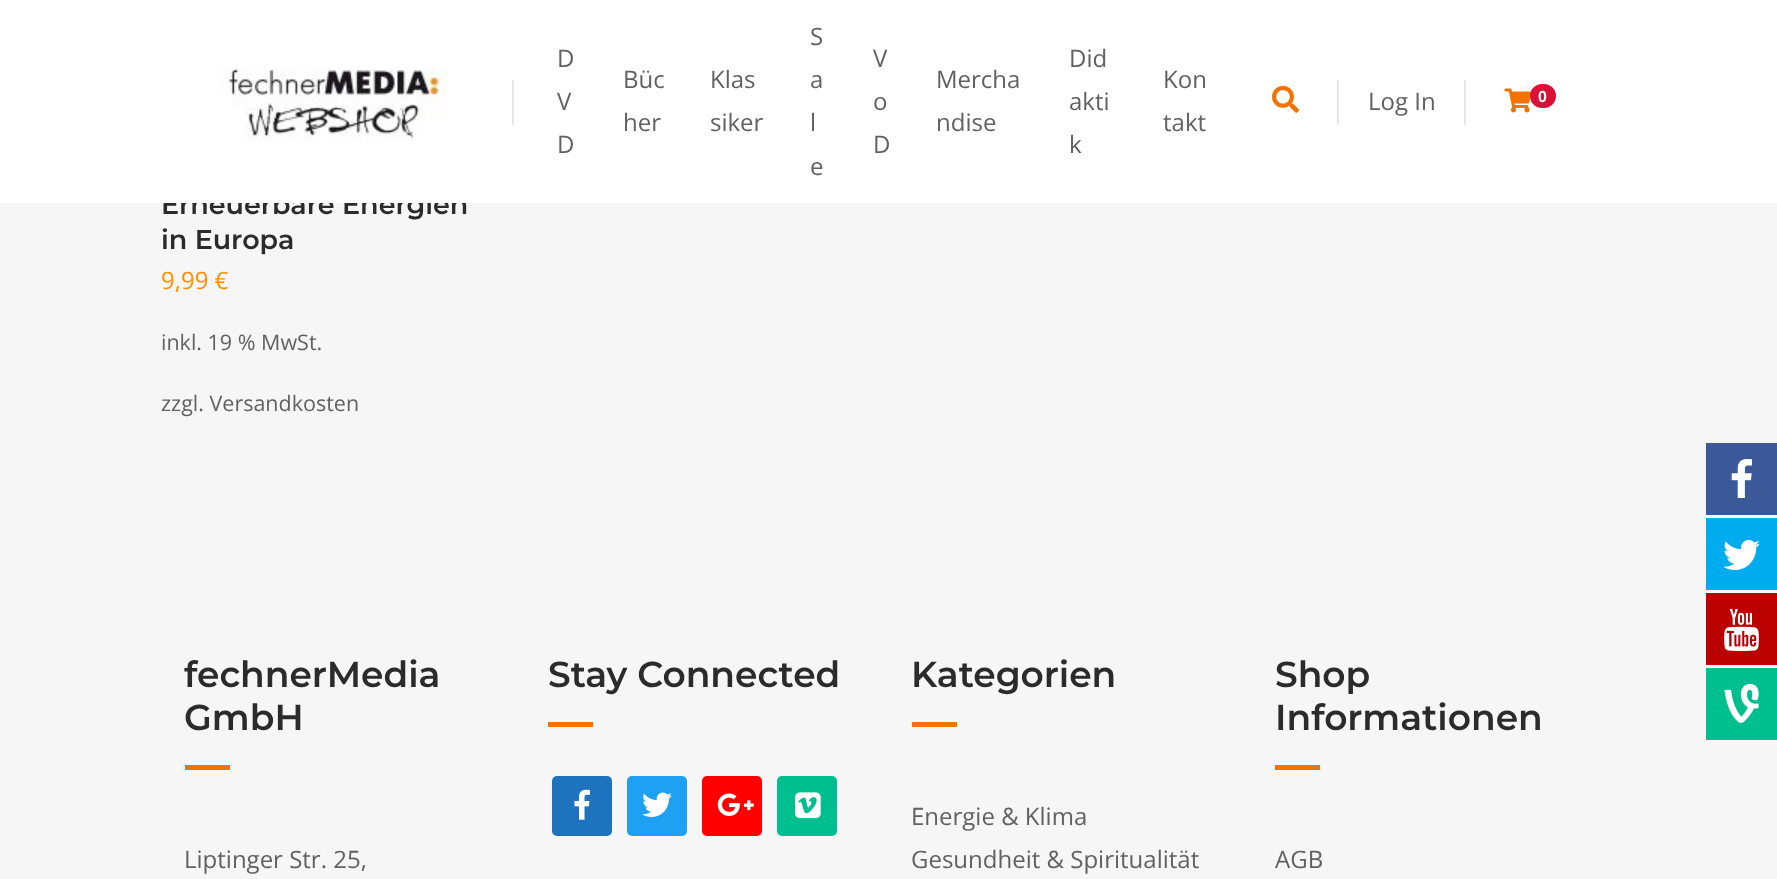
(async () => {
    const canvas = document.querySelector("canvas");
    canvas.width = 1777;
    canvas.height = 879;
    const context = canvas.getContext("2d");
    context.miterLimit = 4;
    context.fontKerning = "normal";
    function write(s, x, y, font, color) {
        context.font = font;
        context.fillStyle = color;
        context.fillText(s, x, y);
    }
    function block(x, y, w, h, color) {
        context.fillStyle = color;
        context.fillRect(x, y, w, h);
    }
    function card(x, y, w, h, r, color) {
        context.fillStyle = color;
        context.beginPath();
        context.roundRect(x, y, w, h, r);
        context.fill();
    }
    async function photo(src, x, y, w, h) {
        const img = new Image();
        img.src = src;
        await img.decode();
        context.drawImage(img, x, y, w, h);
    }

    block(0, 0, 1777, 879, "rgb(246, 246, 246)");
    write("Erneuerbare Energien", 161, 214, "600 27px Montserrat", "rgb(43, 43, 43)");
    block(0, 0, 1777, 203, "rgb(255, 255, 255)");
    await photo("media/1.png", 221, 68, 228, 73);
    block(512, 80, 2, 45, "rgb(230, 230, 230)");
    write("D", 557, 67, "24px Open Sans", "rgb(97, 97, 97)");
    write("V", 557, 110, "24px Open Sans", "rgb(97, 97, 97)");
    write("D", 557, 153, "24px Open Sans", "rgb(97, 97, 97)");
    write("Büc", 623, 88, "24px Open Sans", "rgb(97, 97, 97)");
    write("her", 623, 131, "24px Open Sans", "rgb(97, 97, 97)");
    write("Klas", 710, 88, "24px Open Sans", "rgb(97, 97, 97)");
    write("siker", 710, 131, "24px Open Sans", "rgb(97, 97, 97)");
    write("S", 810, 45, "24px Open Sans", "rgb(97, 97, 97)");
    write("a", 810, 88, "24px Open Sans", "rgb(97, 97, 97)");
    write("l", 810, 131, "24px Open Sans", "rgb(97, 97, 97)");
    write("e", 810, 175, "24px Open Sans", "rgb(97, 97, 97)");
    write("V", 873, 67, "24px Open Sans", "rgb(97, 97, 97)");
    write("o", 873, 110, "24px Open Sans", "rgb(97, 97, 97)");
    write("D", 873, 153, "24px Open Sans", "rgb(97, 97, 97)");
    write("Mercha", 936, 88, "24px Open Sans", "rgb(97, 97, 97)");
    write("ndise", 936, 131, "24px Open Sans", "rgb(97, 97, 97)");
    write("Did", 1069, 67, "24px Open Sans", "rgb(97, 97, 97)");
    write("akti", 1069, 110, "24px Open Sans", "rgb(97, 97, 97)");
    write("k", 1069, 153, "24px Open Sans", "rgb(97, 97, 97)");
    write("Kon", 1163, 88, "24px Open Sans", "rgb(97, 97, 97)");
    write("takt", 1163, 131, "24px Open Sans", "rgb(97, 97, 97)");
    await photo("media/2.png", 1272, 85, 27, 28);
    block(1337, 80, 2, 45, "rgb(230, 230, 230)");
    write("Log In", 1368, 110, "24px Open Sans", "rgb(97, 97, 97)");
    block(1464, 80, 2, 45, "rgb(230, 230, 230)");
    await photo("media/3.png", 1504, 88, 28, 25);
    card(1530, 84, 26, 24, 12, "rgb(219, 16, 55)");
    write("0", 1538, 102, "bold 16px Liberation Sans", "rgb(255, 255, 255)");
    write("in Europa", 161, 249, "600 27px Montserrat", "rgb(43, 43, 43)");
    write("9,99 €", 161, 289, "24px Open Sans", "rgb(255, 144, 0)");
    write("inkl. 19 % MwSt.", 161, 350, "21.5px Open Sans", "rgb(97, 97, 97)");
    write("zzgl. Versandkosten", 161, 411, "21.5px Open Sans", "rgb(97, 97, 97)");
    write("fechnerMedia", 184, 687, "600 36px Montserrat", "rgb(43, 43, 43)");
    write("GmbH", 184, 730, "600 36px Montserrat", "rgb(43, 43, 43)");
    block(185, 765, 45, 5, "rgb(244, 114, 0)");
    write("Liptinger Str. 25,", 184, 868, "24px Open Sans", "rgb(97, 97, 97)");
    write("Stay Connected", 548, 687, "600 36px Montserrat", "rgb(43, 43, 43)");
    block(548, 722, 45, 5, "rgb(244, 114, 0)");
    card(552, 776, 60, 60, 5, "rgb(30, 115, 190)");
    await photo("media/4.png", 574, 789, 16, 31);
    card(627, 776, 60, 60, 5, "rgb(30, 161, 243)");
    await photo("media/5.png", 642, 792, 30, 25);
    card(702, 776, 60, 60, 5, "rgb(254, 0, 0)");
    await photo("media/6.png", 717, 793, 37, 23);
    card(777, 776, 60, 60, 5, "rgb(0, 191, 143)");
    await photo("media/7.png", 795, 792, 26, 27);
    write("Kategorien", 911, 687, "600 36px Montserrat", "rgb(43, 43, 43)");
    block(912, 722, 45, 5, "rgb(244, 114, 0)");
    write("Energie & Klima", 911, 825, "24px Open Sans", "rgb(97, 97, 97)");
    write("Gesundheit & Spiritualität", 911, 868, "24px Open Sans", "rgb(97, 97, 97)");
    write("Shop", 1275, 687, "600 36px Montserrat", "rgb(43, 43, 43)");
    write("Informationen", 1275, 730, "600 36px Montserrat", "rgb(43, 43, 43)");
    block(1275, 765, 45, 5, "rgb(244, 114, 0)");
    write("AGB", 1275, 868, "24px Open Sans", "rgb(97, 97, 97)");
    block(1706, 443, 71, 72, "rgb(59, 89, 152)");
    await photo("media/8.png", 1731, 459, 21, 39);
    block(1706, 518, 71, 72, "rgb(0, 172, 237)");
    await photo("media/9.png", 1723, 540, 37, 30);
    block(1706, 593, 71, 72, "rgb(187, 0, 0)");
    await photo("media/10.png", 1724, 609, 35, 42);
    block(1706, 668, 71, 72, "rgb(0, 191, 143)");
    await photo("media/11.png", 1724, 684, 35, 39);
})();
